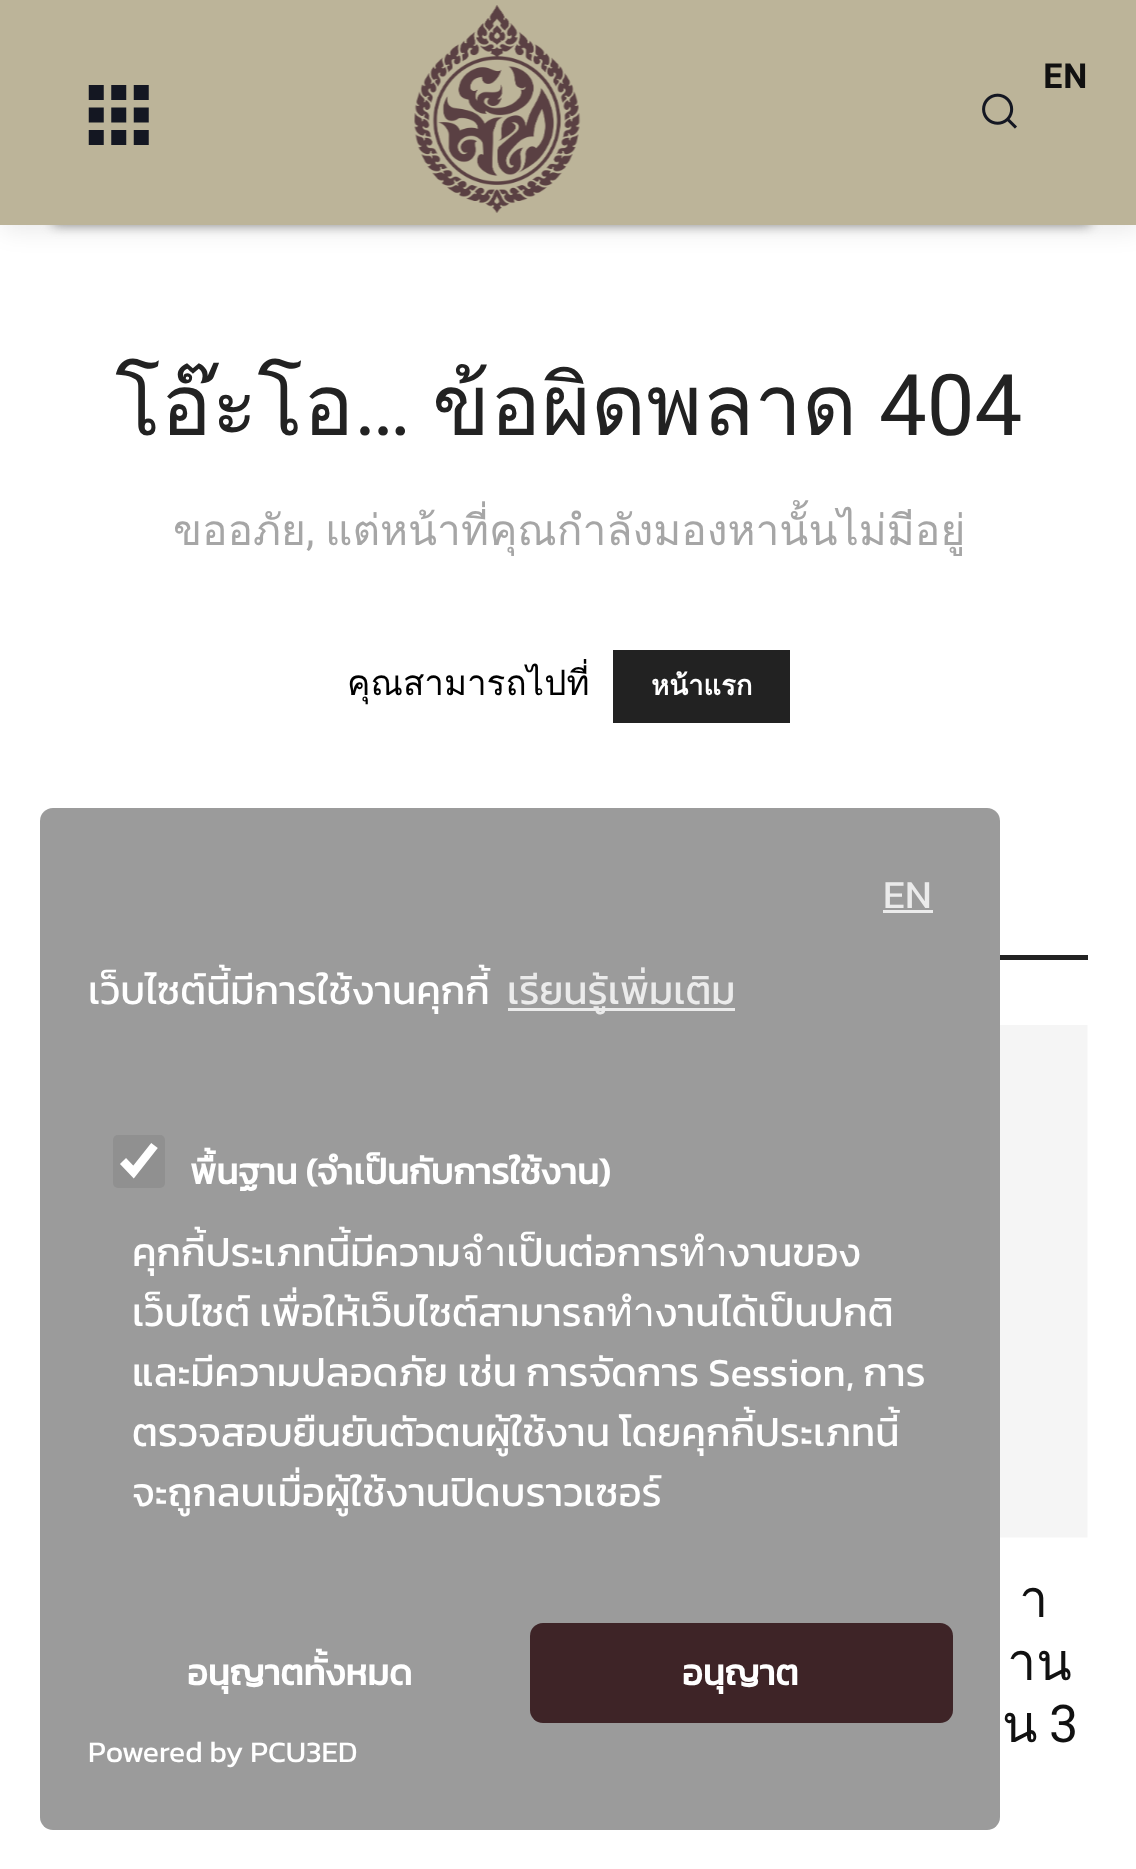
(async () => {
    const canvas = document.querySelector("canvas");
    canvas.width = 1136;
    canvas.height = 1869;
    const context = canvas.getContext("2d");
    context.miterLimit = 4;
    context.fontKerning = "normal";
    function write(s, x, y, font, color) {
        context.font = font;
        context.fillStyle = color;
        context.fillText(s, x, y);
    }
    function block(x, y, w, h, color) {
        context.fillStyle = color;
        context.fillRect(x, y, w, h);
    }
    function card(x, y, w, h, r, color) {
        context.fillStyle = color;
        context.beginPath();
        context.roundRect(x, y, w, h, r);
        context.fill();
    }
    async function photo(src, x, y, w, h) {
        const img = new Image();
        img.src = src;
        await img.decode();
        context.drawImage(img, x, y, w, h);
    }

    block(0, 0, 1136, 1869, "rgb(255, 255, 255)");
    context.fillStyle = "rgba(0, 0, 0, 0.09)";
    context.filter = "blur(12.5px)";
    context.beginPath();
    context.rect(3, 5, 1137, 225);
    context.fill();
    context.filter = "none";
    context.fillStyle = "rgb(136, 136, 136)";
    context.filter = "blur(6px)";
    context.beginPath();
    context.rect(53, 0, 1037, 225);
    context.fill();
    context.filter = "none";
    block(0, 0, 1136, 225, "rgb(188, 180, 153)");
    await photo("media/1.png", 414, 5, 167, 208);
    write("EN", 1043, 88, "bold 35px Sarabun", "rgb(17, 17, 17)");
    await photo("media/2.png", 982, 93, 35, 36);
    await photo("media/3.png", 88, 85, 61, 60);
    write("โอ๊ะโอ", 115, 435, "85px Loma", "rgb(34, 34, 34)");
    write("…", 354, 435, "85px Roboto", "rgb(34, 34, 34)");
    write("ข้อผิดพลาด", 432, 435, "85px Loma", "rgb(34, 34, 34)");
    write("404", 879, 435, "85px Roboto", "rgb(34, 34, 34)");
    write("ขออภัย", 173, 545, "42.5px Loma", "rgb(166, 166, 166)");
    write(",", 306, 545, "42.5px Roboto", "rgb(166, 166, 166)");
    write("แต่หน้าที่คุณกำลังมองหานั้นไม่มีอยู่", 325, 545, "42.5px Loma", "rgb(166, 166, 166)");
    write("คุณสามารถไปที่", 347, 695, "35px Loma", "rgb(0, 0, 0)");
    block(613, 650, 177, 73, "rgb(34, 34, 34)");
    write("หน้าแรก", 651, 695, "bold 27.5px Loma", "rgb(255, 255, 255)");
    block(1000, 955, 88, 5, "rgb(34, 34, 34)");
    await photo("media/4.png", 1000, 1025, 88, 513);
    context.wordSpacing = "-5px";
    write("า", 1019, 1617, "52px Loma", "rgb(17, 17, 17)");
    write("าน", 1007, 1680, "52px Loma", "rgb(17, 17, 17)");
    context.wordSpacing = "-2px";
    write("น", 1002, 1742, "52px Loma", "rgb(17, 17, 17)");
    context.wordSpacing = "0px";
    write("3", 1049, 1742, "52px Roboto", "rgb(17, 17, 17)");
    card(40, 808, 960, 1022, 13, "rgb(155, 155, 155)");
    write("EN", 883, 908, "40px Kanit", "rgb(235, 235, 235)");
    block(883, 910, 50, 3, "rgb(235, 235, 235)");
    write("เว็บไซต์นี้มีการใช้งานคุกกี้", 88, 1004, "40px Kanit", "rgb(255, 255, 255)");
    block(508, 1008, 227, 3, "rgb(235, 235, 235)");
    write("เรียนรู้เพิ่มเติม", 507, 1004, "40px Kanit", "rgb(235, 235, 235)");
    card(113, 1135, 52, 53, 5, "rgb(144, 144, 144)");
    context.beginPath();
    context.moveTo(123, 1161);
    context.lineTo(133.5, 1172);
    context.lineTo(154.5, 1145.5);
    context.strokeStyle = "rgb(255, 255, 255)";
    context.lineWidth = 8.4;
    context.stroke();
    write("พื้นฐาน (จำเป็นกับการใช้งาน)", 190, 1184, "bold 36px Kanit", "rgb(255, 255, 255)");
    write("คุกกี้ประเภทนี้มีความจำเป็นต่อการทำงานของ", 132, 1266, "40px Kanit", "rgb(255, 255, 255)");
    write("เว็บไซต์ เพื่อให้เว็บไซต์สามารถทำงานได้เป็นปกติ", 132, 1326, "40px Kanit", "rgb(255, 255, 255)");
    write("และมีความปลอดภัย เช่น การจัดการ Session, การ", 132, 1386, "40px Kanit", "rgb(255, 255, 255)");
    write("ตรวจสอบยืนยันตัวตนผู้ใช้งาน โดยคุกกี้ประเภทนี้", 132, 1446, "40px Kanit", "rgb(255, 255, 255)");
    write("จะถูกลบเมื่อผู้ใช้งานปิดบราวเซอร์", 132, 1506, "40px Kanit", "rgb(255, 255, 255)");
    write("อนุญาตทั้งหมด", 187, 1685, "bold 36px Kanit", "rgb(255, 255, 255)");
    card(530, 1623, 423, 100, 13, "rgb(62, 36, 39)");
    write("อนุญาต", 682, 1685, "bold 36px Kanit", "rgb(255, 255, 255)");
    write("Powered by PCU3ED", 88, 1762, "30px Kanit", "rgb(255, 255, 255)");
})();
